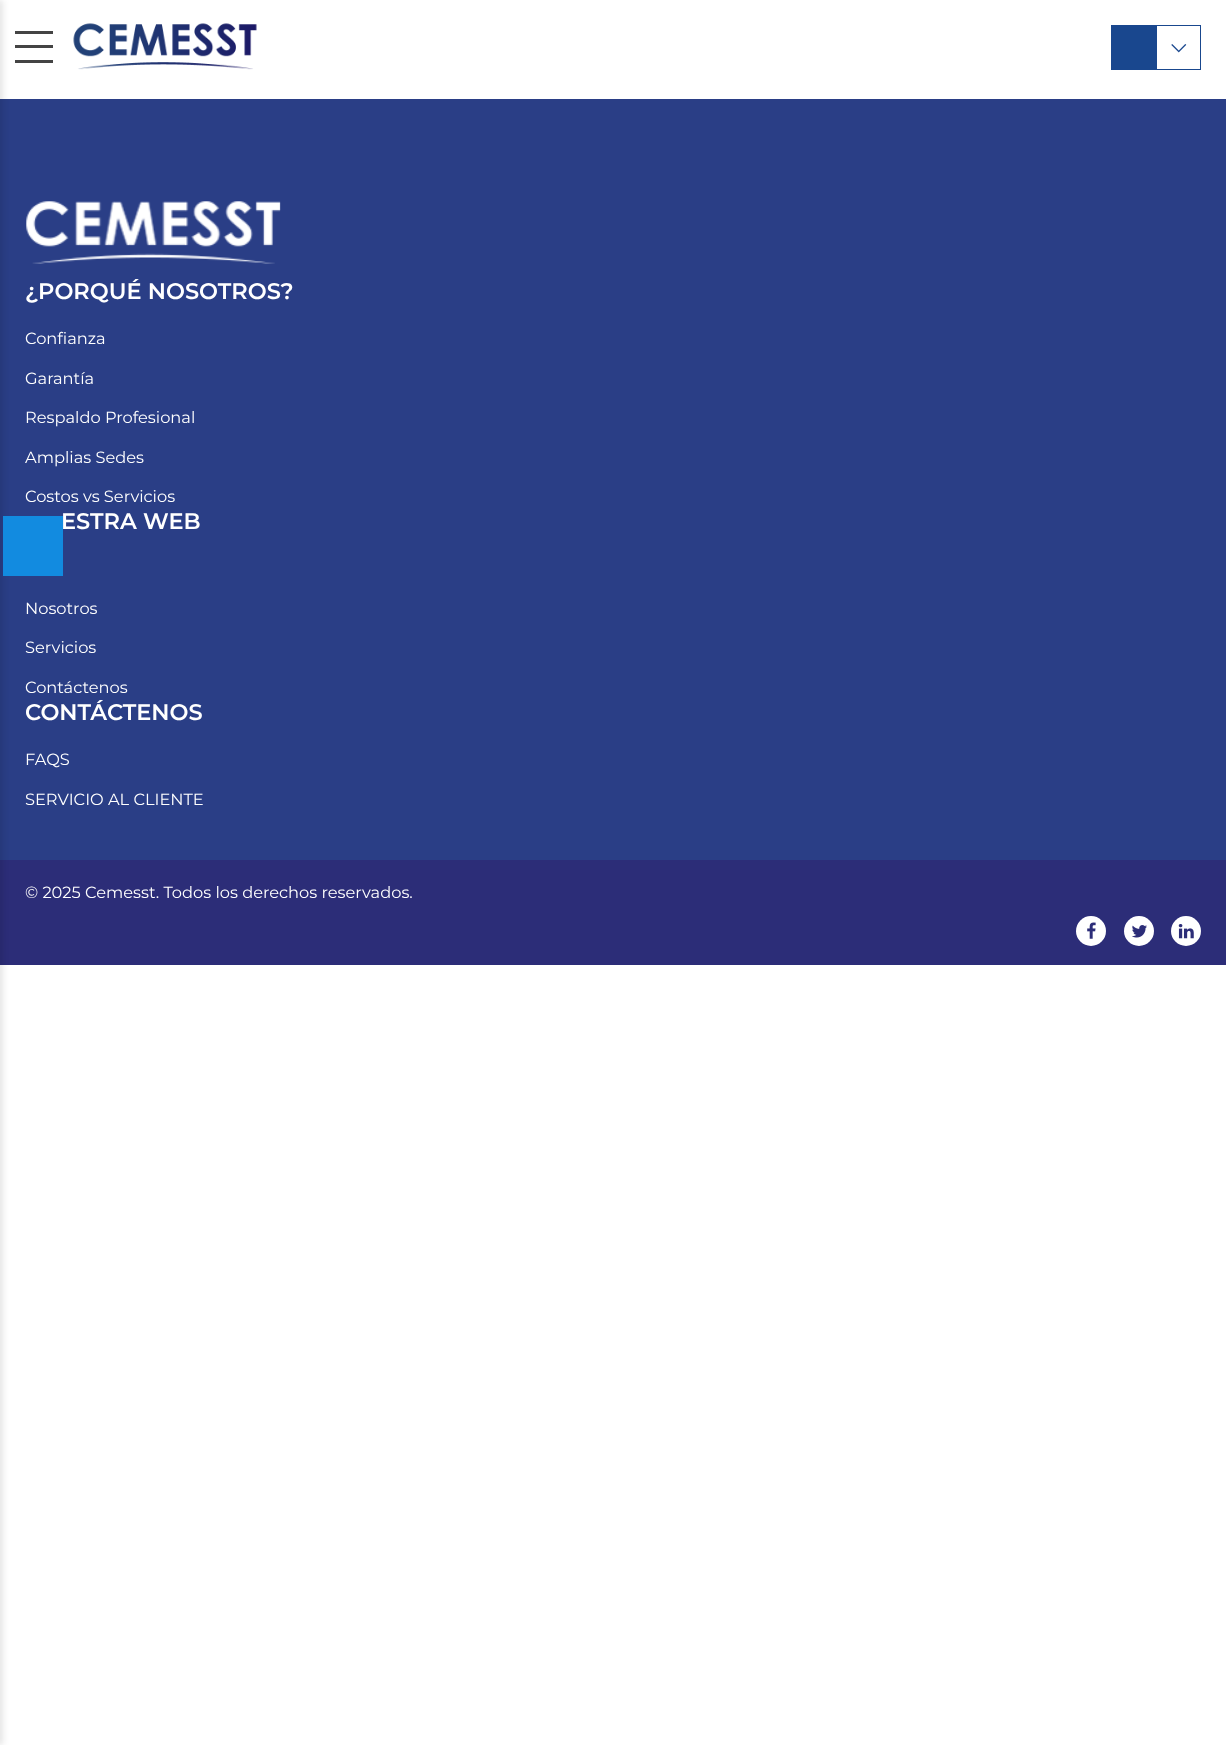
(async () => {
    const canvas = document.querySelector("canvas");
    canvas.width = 1226;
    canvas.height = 1745;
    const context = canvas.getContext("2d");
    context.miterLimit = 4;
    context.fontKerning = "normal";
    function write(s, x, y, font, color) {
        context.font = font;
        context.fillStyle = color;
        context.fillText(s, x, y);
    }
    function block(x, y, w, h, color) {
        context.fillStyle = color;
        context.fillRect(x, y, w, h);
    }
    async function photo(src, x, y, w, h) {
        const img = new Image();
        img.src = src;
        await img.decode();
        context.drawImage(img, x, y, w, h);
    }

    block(0, 0, 1226, 1745, "rgb(255, 255, 255)");
    block(0, 99, 1226, 761, "rgb(42, 62, 134)");
    block(0, 860, 1226, 105, "rgb(44, 45, 120)");
    context.fillStyle = "rgba(0, 0, 0, 0.1)";
    context.filter = "blur(3px)";
    context.beginPath();
    context.rect(-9, 0, 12, 1745);
    context.fill();
    context.filter = "none";
    block(15, 31, 38, 3, "rgb(68, 68, 68)");
    block(15, 45, 38, 3, "rgb(68, 68, 68)");
    block(15, 60, 38, 3, "rgb(68, 68, 68)");
    await photo("media/1.png", 73, 23, 184, 47);
    block(1111, 25, 45, 45, "rgb(25, 71, 142)");
    context.strokeStyle = "rgb(25, 71, 142)";
    context.strokeRect(1156.5, 25.5, 44, 44);
    await photo("media/2.png", 1171, 44, 16, 9);
    await photo("media/3.png", 26, 201, 255, 63);
    write("¿PORQUÉ NOSOTROS?", 25, 299, "600 22.5px Montserrat", "rgb(255, 255, 255)");
    write("Confianza", 25, 344, "16.25px Montserrat", "rgb(255, 255, 255)");
    write("Garantía", 25, 384, "16.25px Montserrat", "rgb(255, 255, 255)");
    write("Respaldo Profesional", 25, 423, "16.25px Montserrat", "rgb(255, 255, 255)");
    write("Amplias Sedes", 25, 463, "16.25px Montserrat", "rgb(255, 255, 255)");
    write("Costos vs Servicios", 25, 502, "16.25px Montserrat", "rgb(255, 255, 255)");
    write("ESTRA WEB", 61, 529, "600 22.5px Montserrat", "rgb(255, 255, 255)");
    write("Nosotros", 25, 614, "16.25px Montserrat", "rgb(255, 255, 255)");
    write("Servicios", 25, 653, "16.25px Montserrat", "rgb(255, 255, 255)");
    write("Contáctenos", 25, 693, "16.25px Montserrat", "rgb(255, 255, 255)");
    write("CONTÁCTENOS", 25, 720, "600 22.5px Montserrat", "rgb(255, 255, 255)");
    write("FAQS", 25, 765, "16.25px Montserrat", "rgb(255, 255, 255)");
    write("SERVICIO AL CLIENTE", 25, 805, "16.25px Montserrat", "rgb(255, 255, 255)");
    write("© 2025 Cemesst. Todos los derechos reservados.", 25, 898, "16.25px Montserrat", "rgb(255, 255, 255)");
    context.beginPath();
    context.arc(1091, 931, 15, 0, Math.PI * 2);
    context.fill();
    await photo("media/4.png", 1087, 922, 9, 17);
    context.beginPath();
    context.arc(1139, 931, 15, 0, Math.PI * 2);
    context.fill();
    await photo("media/5.png", 1132, 925, 15, 13);
    context.beginPath();
    context.arc(1186, 931, 15, 0, Math.PI * 2);
    context.fill();
    await photo("media/6.png", 1178, 924, 16, 15);
    block(3, 516, 60, 60, "rgb(18, 139, 224)");
})();
